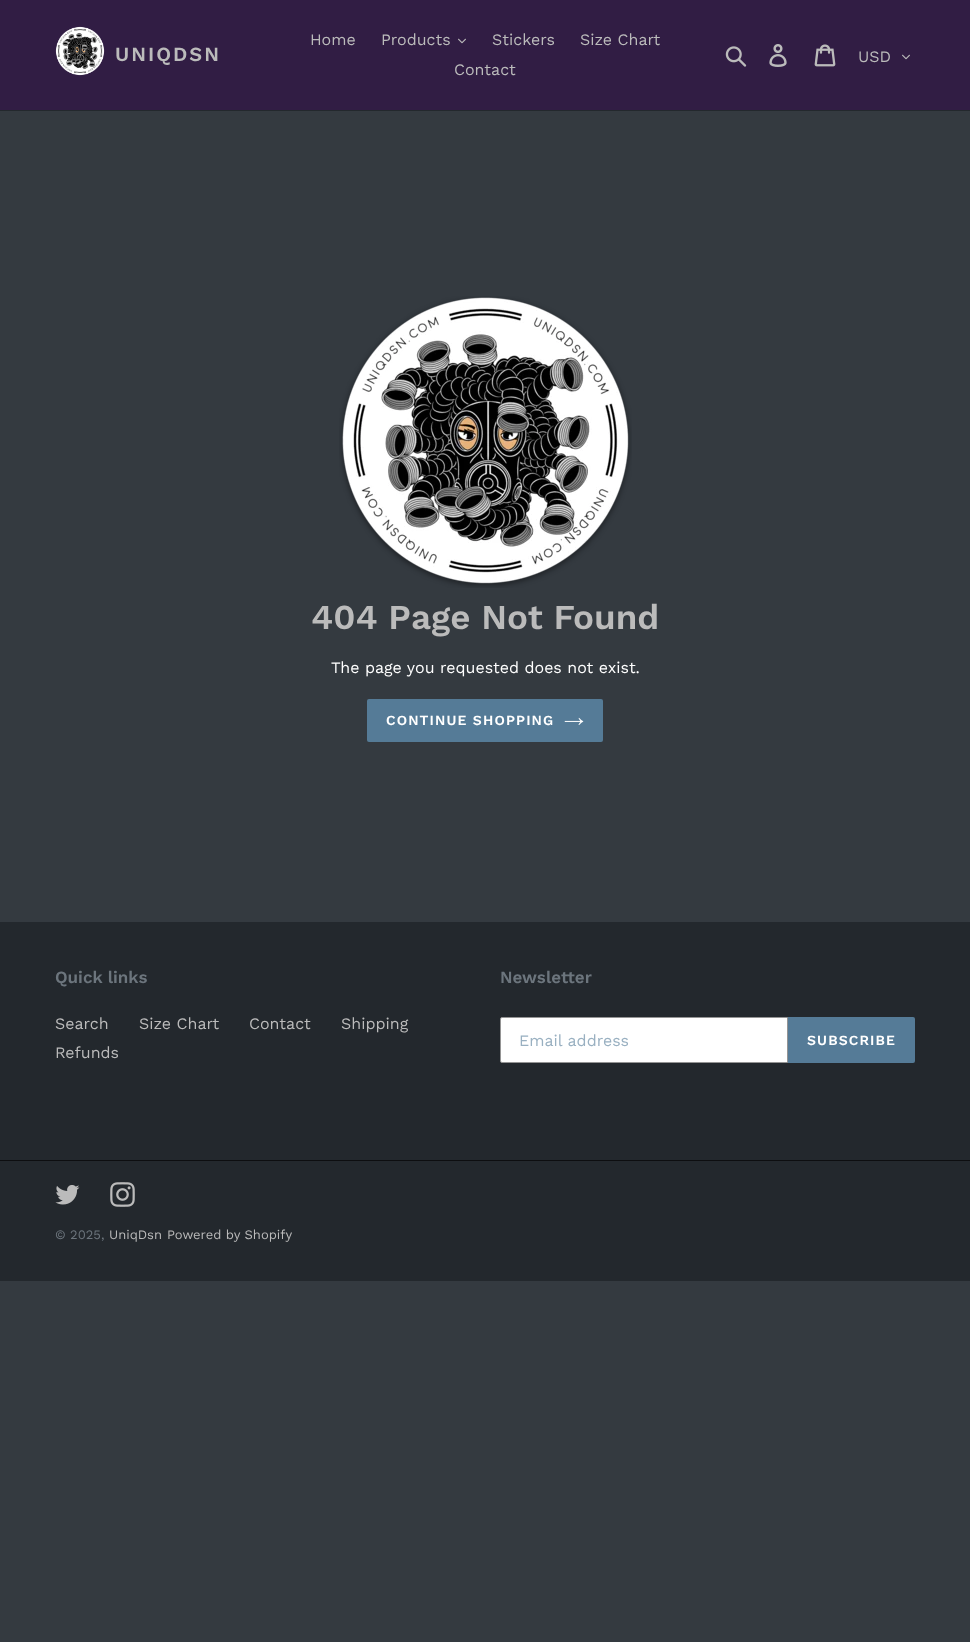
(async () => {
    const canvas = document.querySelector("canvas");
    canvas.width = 970;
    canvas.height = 1642;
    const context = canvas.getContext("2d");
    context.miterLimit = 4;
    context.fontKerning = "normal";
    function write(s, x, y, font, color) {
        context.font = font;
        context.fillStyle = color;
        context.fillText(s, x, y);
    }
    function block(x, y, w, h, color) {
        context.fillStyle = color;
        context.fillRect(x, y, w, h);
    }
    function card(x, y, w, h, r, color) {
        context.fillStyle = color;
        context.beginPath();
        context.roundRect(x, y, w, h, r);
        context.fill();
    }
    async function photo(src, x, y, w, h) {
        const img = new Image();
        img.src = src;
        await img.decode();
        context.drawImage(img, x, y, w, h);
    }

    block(0, 0, 970, 1642, "rgb(52, 58, 64)");
    block(0, 0, 970, 110, "rgb(49, 29, 68)");
    block(0, 110, 970, 1, "rgb(35, 40, 45)");
    await photo("media/1.png", 55, 26, 50, 50);
    context.letterSpacing = "2px";
    write("UNIQDSN", 115, 61, "600 20px Work Sans", "rgb(187, 187, 187)");
    context.letterSpacing = "0px";
    write("Home", 310, 45, "16px Work Sans", "rgb(187, 187, 187)");
    write("Products", 381, 45, "16px Work Sans", "rgb(187, 187, 187)");
    await photo("media/2.png", 458, 38, 8, 6);
    write("Stickers", 492, 45, "16px Work Sans", "rgb(187, 187, 187)");
    write("Size Chart", 580, 45, "16px Work Sans", "rgb(187, 187, 187)");
    write("Contact", 454, 75, "16px Work Sans", "rgb(187, 187, 187)");
    await photo("media/3.png", 725, 46, 22, 21);
    await photo("media/4.png", 769, 44, 18, 23);
    await photo("media/5.png", 814, 44, 22, 23);
    write("USD", 858, 62, "16px Work Sans", "rgb(187, 187, 187)");
    await photo("media/2.png", 902, 54, 8, 6);
    await photo("media/6.png", 339, 296, 293, 292);
    write("404 Page Not Found", 311, 629, "600 35px Work Sans", "rgb(187, 187, 187)");
    write("The page you requested does not exist.", 331, 673, "16px Work Sans", "rgb(255, 255, 255)");
    card(367, 699, 236, 43, 2, "rgb(85, 123, 151)");
    context.letterSpacing = "1.1px";
    write("CONTINUE SHOPPING", 386, 725, "600 14px Work Sans", "rgb(255, 255, 255)");
    await photo("media/7.png", 564, 717, 20, 8);
    block(0, 922, 970, 359, "rgb(35, 40, 45)");
    context.letterSpacing = "0px";
    write("Quick links", 55, 983, "600 17px Work Sans", "rgb(108, 117, 125)");
    write("Search", 55, 1029, "16px Work Sans", "rgb(187, 187, 187)");
    write("Size Chart", 139, 1029, "16px Work Sans", "rgb(187, 187, 187)");
    write("Contact", 249, 1029, "16px Work Sans", "rgb(187, 187, 187)");
    write("Shipping", 341, 1029, "16px Work Sans", "rgb(187, 187, 187)");
    write("Refunds", 55, 1058, "16px Work Sans", "rgb(187, 187, 187)");
    write("Newsletter", 500, 983, "600 17px Work Sans", "rgb(108, 117, 125)");
    context.fillStyle = "rgb(255, 255, 255)";
    context.beginPath();
    context.roundRect(500.5, 1017.5, 287, 45, [1.5, 0, 0, 1.5]);
    context.fill();
    context.strokeStyle = "rgb(148, 148, 148)";
    context.stroke();
    write("Email address", 519, 1046, "16px Work Sans", "rgb(153, 176, 193)");
    context.fillStyle = "rgb(85, 123, 151)";
    context.beginPath();
    context.roundRect(788, 1017, 127, 46, [0, 2, 2, 0]);
    context.fill();
    context.letterSpacing = "1.1px";
    write("SUBSCRIBE", 807, 1045, "600 14px Work Sans", "rgb(255, 255, 255)");
    block(0, 1160, 970, 1, "rgb(13, 14, 16)");
    await photo("media/8.png", 55, 1185, 25, 20);
    await photo("media/9.png", 110, 1182, 25, 25);
    context.letterSpacing = "0px";
    write("© 2025,", 55, 1239, "13px Work Sans", "rgb(108, 117, 125)");
    write("UniqDsn", 109, 1239, "13px Work Sans", "rgb(187, 187, 187)");
    write("Powered by Shopify", 167, 1239, "13px Work Sans", "rgb(187, 187, 187)");
})();
